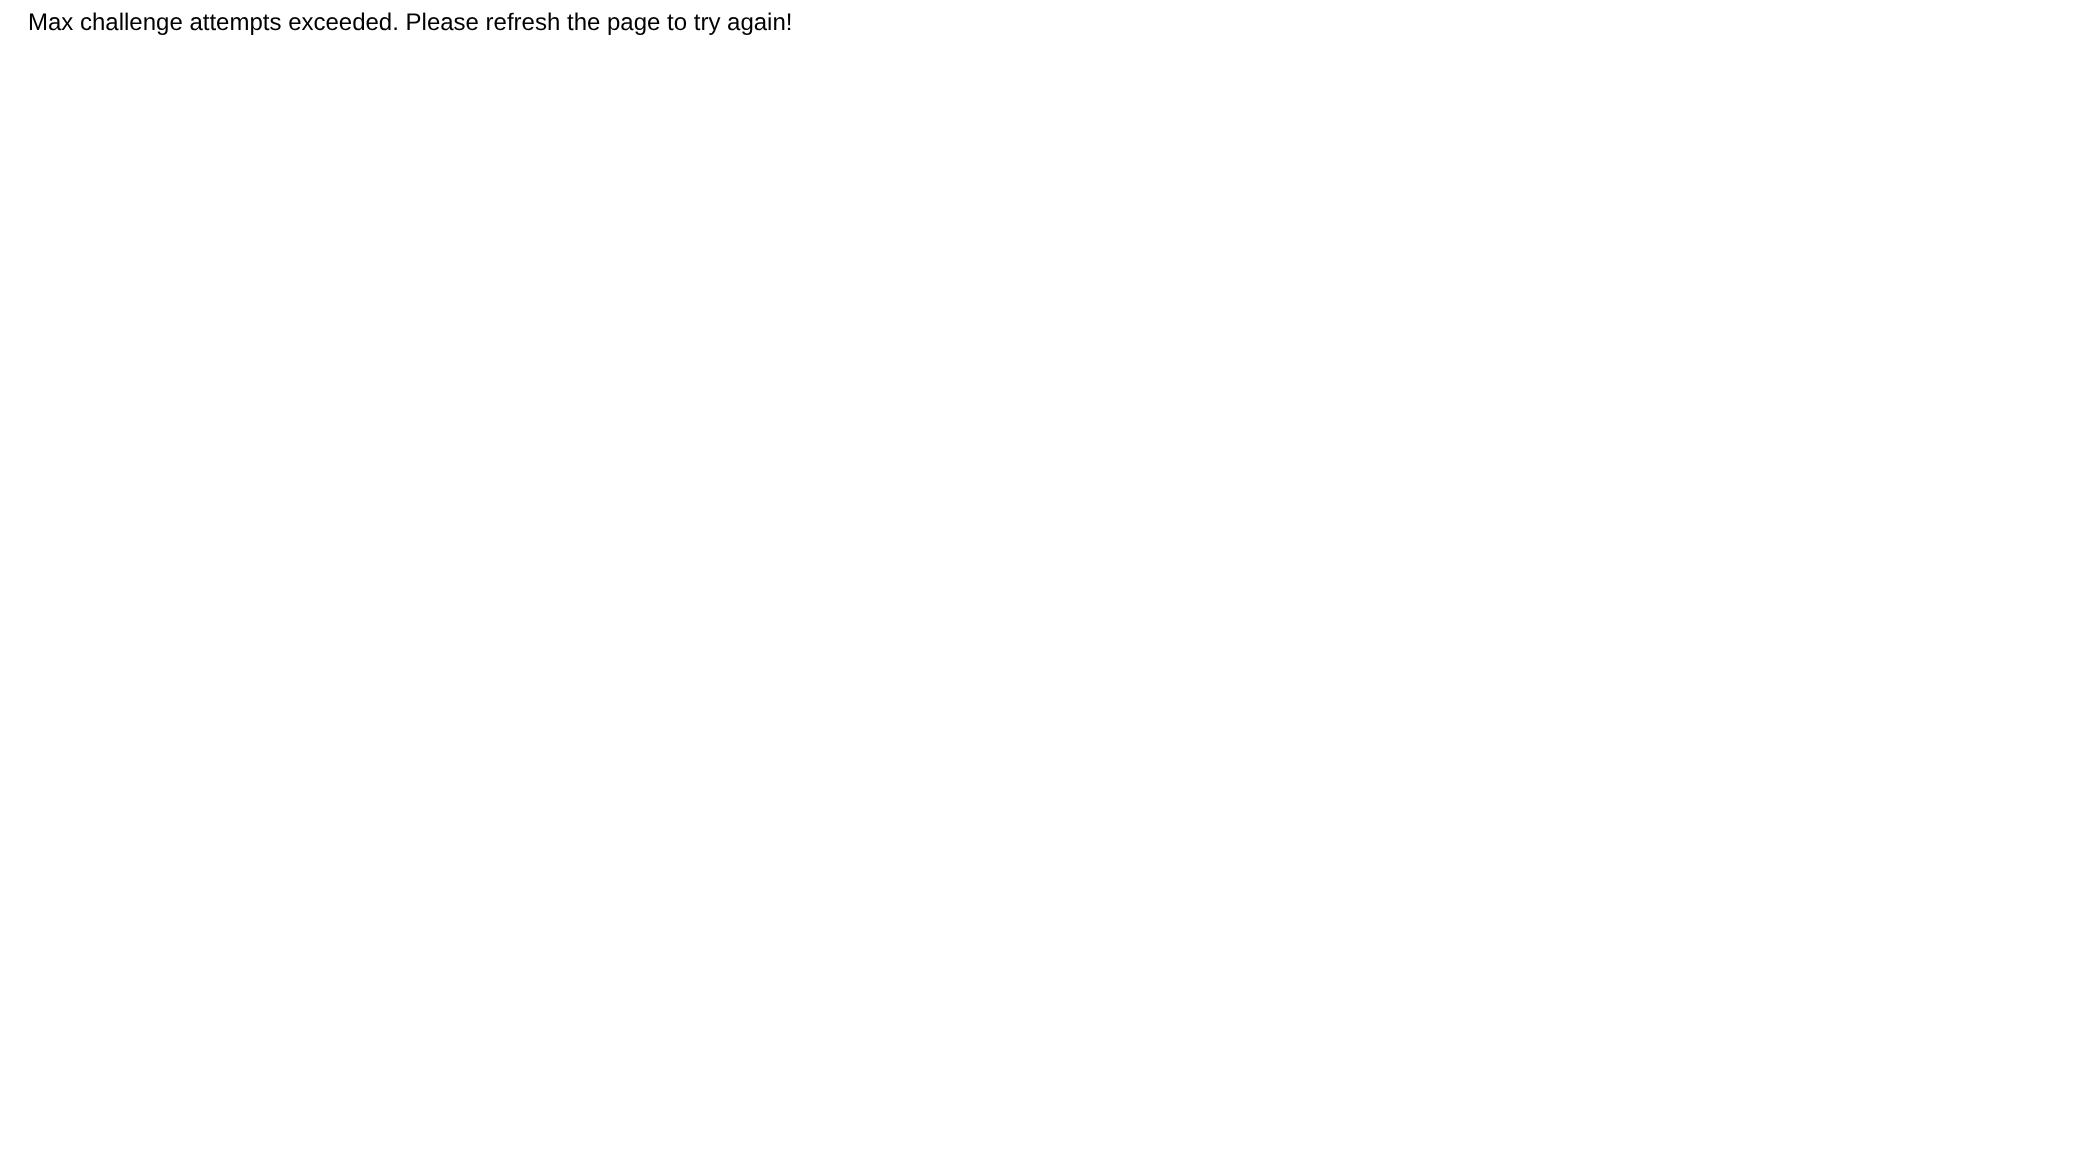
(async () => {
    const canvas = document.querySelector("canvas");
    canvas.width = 2086;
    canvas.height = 1166;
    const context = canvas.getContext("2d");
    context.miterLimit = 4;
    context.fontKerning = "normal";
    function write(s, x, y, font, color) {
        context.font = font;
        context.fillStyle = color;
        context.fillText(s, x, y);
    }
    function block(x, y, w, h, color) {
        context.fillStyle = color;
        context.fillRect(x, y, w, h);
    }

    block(0, 0, 2086, 1166, "rgb(255, 255, 255)");
    write("Max challenge attempts exceeded. Please refresh the page to try again!", 28, 30, "24px Liberation Sans", "rgb(0, 0, 0)");
})();
